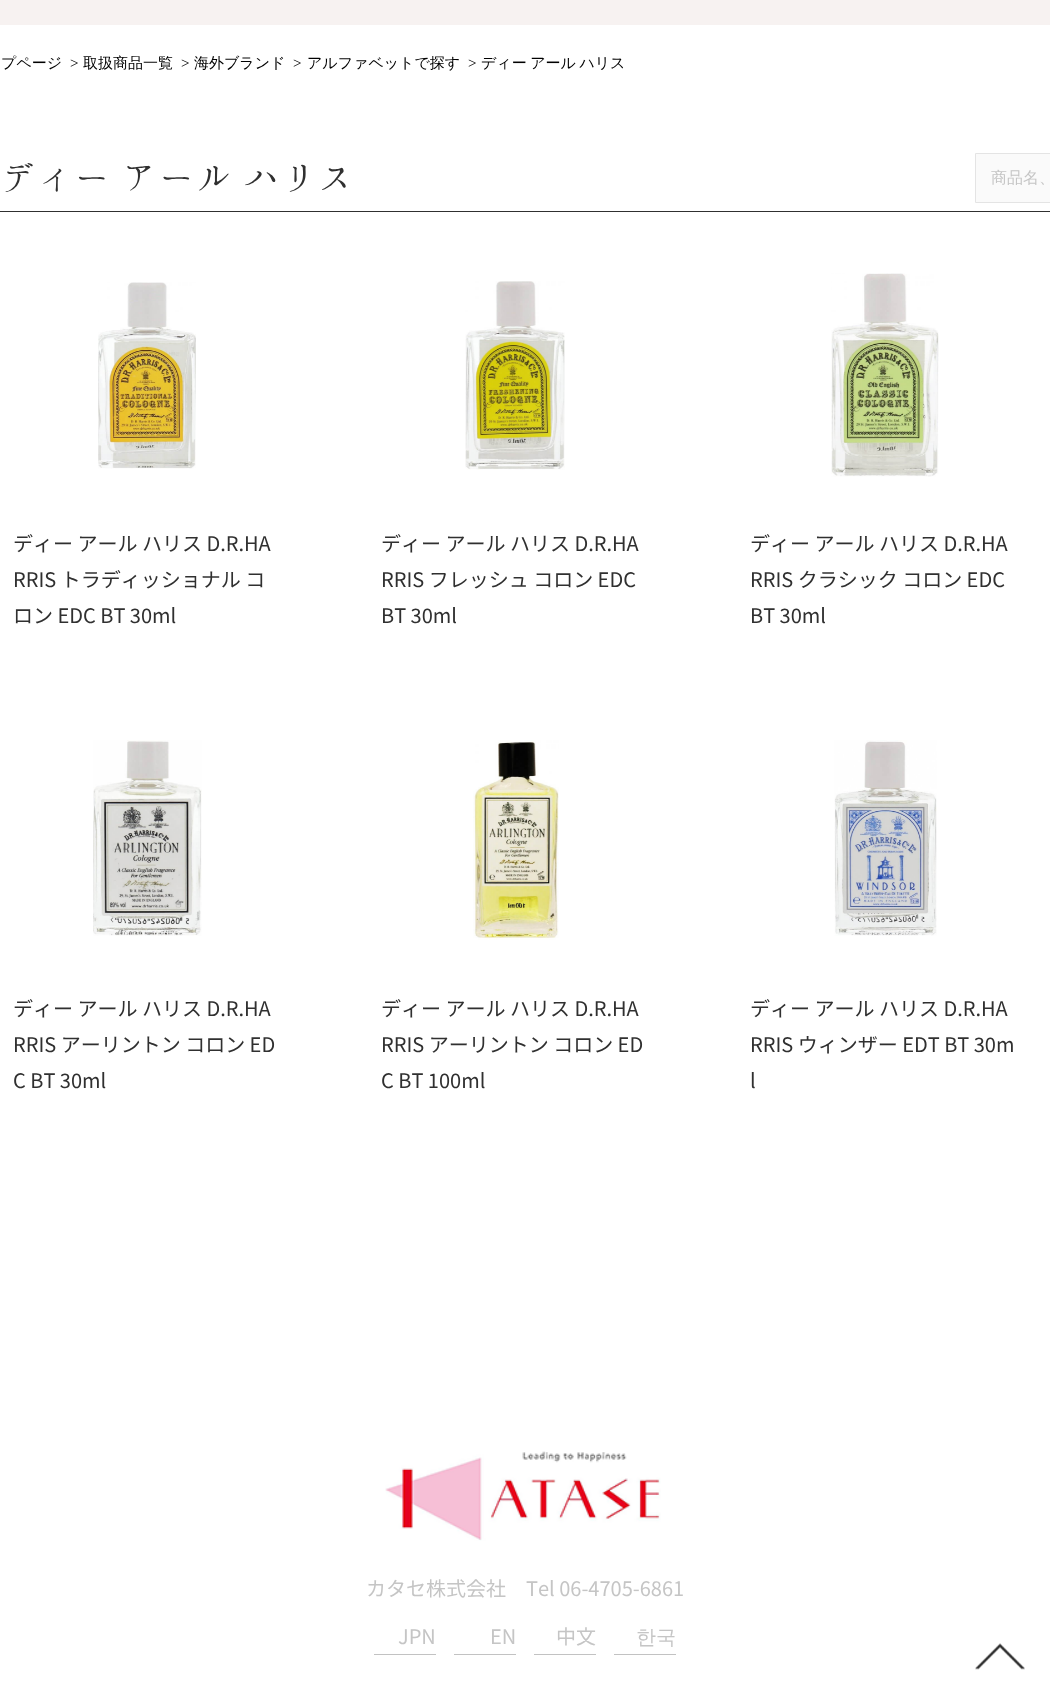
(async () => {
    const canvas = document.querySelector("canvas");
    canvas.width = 1050;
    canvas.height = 1695;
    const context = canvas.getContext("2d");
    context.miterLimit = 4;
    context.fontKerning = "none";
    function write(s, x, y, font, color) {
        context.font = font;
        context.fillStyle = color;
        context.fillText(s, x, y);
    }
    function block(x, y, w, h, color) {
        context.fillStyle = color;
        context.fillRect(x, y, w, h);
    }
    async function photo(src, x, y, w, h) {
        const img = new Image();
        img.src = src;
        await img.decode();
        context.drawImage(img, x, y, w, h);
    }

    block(0, 0, 1050, 1695, "rgb(255, 255, 255)");
    block(0, 0, 1050, 25, "rgb(247, 242, 241)");
    write("プページ", 1, 68, "500 15px WenQuanYi Zen Hei", "rgb(0, 0, 0)");
    write(">", 70, 68, "15px Liberation Serif", "rgb(0, 0, 0)");
    write("取扱商品一覧", 83, 68, "500 15px WenQuanYi Zen Hei", "rgb(0, 0, 0)");
    write(">", 181, 68, "15px Liberation Serif", "rgb(0, 0, 0)");
    write("海外ブランド", 194, 68, "500 15px WenQuanYi Zen Hei", "rgb(0, 0, 0)");
    write(">", 293, 68, "15px Liberation Serif", "rgb(0, 0, 0)");
    write("アルファベットで探す", 307, 68, "500 15px WenQuanYi Zen Hei", "rgb(0, 0, 0)");
    write(">", 468, 68, "15px Liberation Serif", "rgb(0, 0, 0)");
    context.wordSpacing = "-1px";
    write("ディー アール ハリス", 481, 68, "500 15px WenQuanYi Zen Hei", "rgb(0, 0, 0)");
    block(0, 211, 1050, 1, "rgb(48, 48, 48)");
    context.wordSpacing = "0px";
    write("ディー", 0, 191, "37.5px Hannari", "rgb(48, 48, 48)");
    write("アール", 122, 191, "37.5px Hannari", "rgb(48, 48, 48)");
    write("ハリス", 244, 191, "37.5px Hannari", "rgb(48, 48, 48)");
    context.fillStyle = "rgb(250, 250, 250)";
    context.beginPath();
    context.rect(975.5, 153.5, 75, 49);
    context.fill();
    context.strokeStyle = "rgb(228, 228, 228)";
    context.stroke();
    write("商品名、", 991, 183, "500 16px WenQuanYi Zen Hei", "rgb(197, 197, 197)");
    await photo("media/1.png", 98, 282, 98, 187);
    write("ディー アール ハリス D.R.HA", 13, 551, "20px Noto Sans JP", "rgb(48, 48, 48)");
    write("RRIS トラディッショナル コ", 13, 587, "20px Noto Sans JP", "rgb(48, 48, 48)");
    write("ロン EDC BT 30ml", 13, 623, "20px Noto Sans JP", "rgb(48, 48, 48)");
    await photo("media/2.png", 465, 281, 100, 189);
    write("ディー アール ハリス D.R.HA", 381, 551, "20px Noto Sans JP", "rgb(48, 48, 48)");
    write("RRIS フレッシュ コロン EDC", 381, 587, "20px Noto Sans JP", "rgb(48, 48, 48)");
    write("BT 30ml", 381, 623, "20px Noto Sans JP", "rgb(48, 48, 48)");
    await photo("media/3.png", 831, 273, 108, 204);
    write("ディー アール ハリス D.R.HA", 750, 551, "20px Noto Sans JP", "rgb(48, 48, 48)");
    write("RRIS クラシック コロン EDC", 750, 587, "20px Noto Sans JP", "rgb(48, 48, 48)");
    write("BT 30ml", 750, 623, "20px Noto Sans JP", "rgb(48, 48, 48)");
    await photo("media/4.png", 93, 740, 109, 196);
    write("ディー アール ハリス D.R.HA", 13, 1016, "20px Noto Sans JP", "rgb(48, 48, 48)");
    write("RRIS アーリントン コロン ED", 13, 1052, "20px Noto Sans JP", "rgb(48, 48, 48)");
    write("C BT 30ml", 13, 1088, "20px Noto Sans JP", "rgb(48, 48, 48)");
    await photo("media/5.png", 473, 740, 86, 200);
    write("ディー アール ハリス D.R.HA", 381, 1016, "20px Noto Sans JP", "rgb(48, 48, 48)");
    write("RRIS アーリントン コロン ED", 381, 1052, "20px Noto Sans JP", "rgb(48, 48, 48)");
    write("C BT 100ml", 381, 1088, "20px Noto Sans JP", "rgb(48, 48, 48)");
    await photo("media/6.png", 834, 740, 103, 196);
    write("ディー アール ハリス D.R.HA", 750, 1016, "20px Noto Sans JP", "rgb(48, 48, 48)");
    write("RRIS ウィンザー EDT BT 30m", 750, 1052, "20px Noto Sans JP", "rgb(48, 48, 48)");
    write("l", 750, 1088, "20px Noto Sans JP", "rgb(48, 48, 48)");
    await photo("media/7.png", 385, 1451, 276, 90);
    write("カタセ株式会社　Tel 06-4705-6861", 366, 1596, "20px Noto Sans JP", "rgb(197, 197, 197)");
    block(374, 1654, 62, 1, "rgb(194, 194, 194)");
    write("JPN", 398, 1644, "20px Noto Sans JP", "rgb(197, 197, 197)");
    block(454, 1654, 62, 1, "rgb(194, 194, 194)");
    write("EN", 490, 1644, "20px Noto Sans JP", "rgb(197, 197, 197)");
    block(534, 1654, 62, 1, "rgb(194, 194, 194)");
    write("中文", 556, 1644, "20px Noto Sans JP", "rgb(197, 197, 197)");
    block(614, 1654, 62, 1, "rgb(194, 194, 194)");
    write("한국", 636, 1644, "500 20px WenQuanYi Zen Hei", "rgb(197, 197, 197)");
    await photo("media/8.png", 975, 1643, 50, 27);
})();
